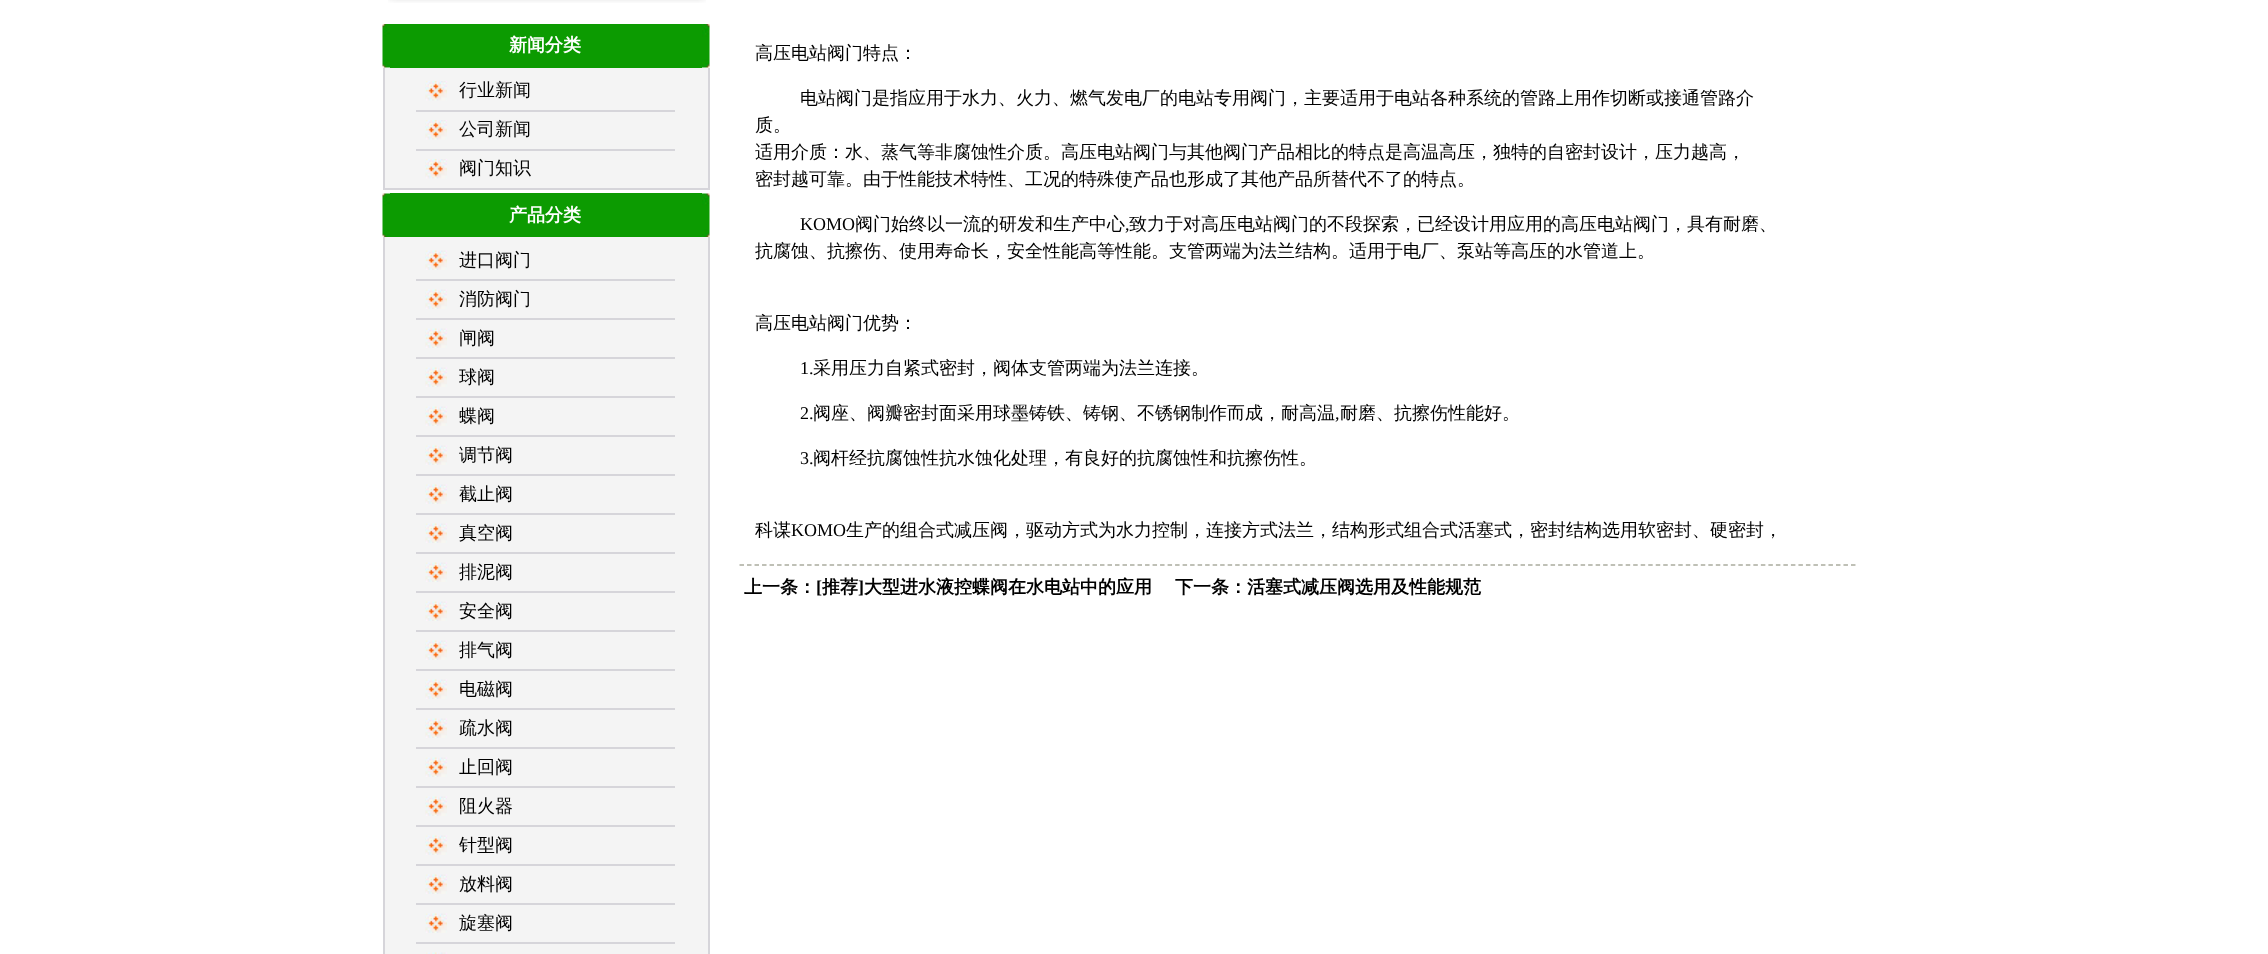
(async () => {
    const canvas = document.querySelector("canvas");
    canvas.width = 2268;
    canvas.height = 954;
    const context = canvas.getContext("2d");
    context.miterLimit = 4;
    context.fontKerning = "normal";
    function write(s, x, y, font, color) {
        context.font = font;
        context.fillStyle = color;
        context.fillText(s, x, y);
    }
    function block(x, y, w, h, color) {
        context.fillStyle = color;
        context.fillRect(x, y, w, h);
    }
    async function photo(src, x, y, w, h) {
        const img = new Image();
        img.src = src;
        await img.decode();
        context.drawImage(img, x, y, w, h);
    }

    block(0, 0, 2268, 954, "rgb(255, 255, 255)");
    await photo("media/1.png", 388, 0, 318, 3);
    await photo("media/2.png", 382, 24, 8, 44);
    block(390, 24, 312, 44, "rgb(12, 155, 1)");
    write("新闻分类", 509, 51, "bold 18px WenQuanYi Zen Hei", "rgb(255, 255, 255)");
    await photo("media/3.png", 702, 24, 8, 44);
    block(385, 68, 323, 120, "rgb(244, 244, 244)");
    block(708, 68, 2, 121, "rgb(214, 213, 218)");
    block(383, 188, 327, 2, "rgb(214, 213, 218)");
    block(383, 68, 2, 121, "rgb(214, 213, 218)");
    write("行业新闻", 459, 96, "500 18px WenQuanYi Zen Hei", "rgb(0, 0, 0)");
    block(416, 110, 259, 2, "rgb(214, 213, 218)");
    await photo("media/4.png", 425, 81, 22, 20);
    write("公司新闻", 459, 135, "500 18px WenQuanYi Zen Hei", "rgb(0, 0, 0)");
    block(416, 149, 259, 2, "rgb(214, 213, 218)");
    await photo("media/4.png", 425, 120, 22, 20);
    await photo("media/4.png", 425, 159, 22, 20);
    write("阀门知识", 459, 174, "500 18px WenQuanYi Zen Hei", "rgb(0, 0, 0)");
    await photo("media/5.png", 382, 193, 8, 44);
    block(390, 193, 312, 44, "rgb(12, 155, 1)");
    write("产品分类", 509, 221, "bold 18px WenQuanYi Zen Hei", "rgb(255, 255, 255)");
    await photo("media/6.png", 702, 193, 8, 44);
    block(385, 237, 323, 717, "rgb(244, 244, 244)");
    block(708, 237, 2, 717, "rgb(214, 213, 218)");
    block(383, 237, 2, 717, "rgb(214, 213, 218)");
    block(416, 279, 259, 2, "rgb(214, 213, 218)");
    await photo("media/7.png", 425, 250, 22, 20);
    write("进口阀门", 459, 266, "500 18px WenQuanYi Zen Hei", "rgb(0, 0, 0)");
    block(416, 318, 259, 2, "rgb(214, 213, 218)");
    await photo("media/7.png", 425, 289, 22, 20);
    write("消防阀门", 459, 305, "500 18px WenQuanYi Zen Hei", "rgb(0, 0, 0)");
    block(416, 357, 259, 2, "rgb(214, 213, 218)");
    await photo("media/7.png", 425, 328, 22, 20);
    write("闸阀", 459, 344, "500 18px WenQuanYi Zen Hei", "rgb(0, 0, 0)");
    block(416, 396, 259, 2, "rgb(214, 213, 218)");
    await photo("media/7.png", 425, 367, 22, 20);
    write("球阀", 459, 383, "500 18px WenQuanYi Zen Hei", "rgb(0, 0, 0)");
    block(416, 435, 259, 2, "rgb(214, 213, 218)");
    await photo("media/7.png", 425, 406, 22, 20);
    write("蝶阀", 459, 422, "500 18px WenQuanYi Zen Hei", "rgb(0, 0, 0)");
    block(416, 474, 259, 2, "rgb(214, 213, 218)");
    await photo("media/7.png", 425, 445, 22, 20);
    write("调节阀", 459, 461, "500 18px WenQuanYi Zen Hei", "rgb(0, 0, 0)");
    block(416, 513, 259, 2, "rgb(214, 213, 218)");
    await photo("media/7.png", 425, 484, 22, 20);
    write("截止阀", 459, 500, "500 18px WenQuanYi Zen Hei", "rgb(0, 0, 0)");
    block(416, 552, 259, 2, "rgb(214, 213, 218)");
    await photo("media/7.png", 425, 523, 22, 20);
    write("真空阀", 459, 539, "500 18px WenQuanYi Zen Hei", "rgb(0, 0, 0)");
    block(416, 591, 259, 2, "rgb(214, 213, 218)");
    await photo("media/7.png", 425, 562, 22, 20);
    write("排泥阀", 459, 578, "500 18px WenQuanYi Zen Hei", "rgb(0, 0, 0)");
    block(416, 630, 259, 2, "rgb(214, 213, 218)");
    await photo("media/7.png", 425, 601, 22, 20);
    write("安全阀", 459, 617, "500 18px WenQuanYi Zen Hei", "rgb(0, 0, 0)");
    block(416, 669, 259, 2, "rgb(214, 213, 218)");
    await photo("media/7.png", 425, 640, 22, 20);
    write("排气阀", 459, 656, "500 18px WenQuanYi Zen Hei", "rgb(0, 0, 0)");
    block(416, 708, 259, 2, "rgb(214, 213, 218)");
    await photo("media/7.png", 425, 679, 22, 20);
    write("电磁阀", 459, 695, "500 18px WenQuanYi Zen Hei", "rgb(0, 0, 0)");
    block(416, 747, 259, 2, "rgb(214, 213, 218)");
    await photo("media/7.png", 425, 718, 22, 20);
    write("疏水阀", 459, 734, "500 18px WenQuanYi Zen Hei", "rgb(0, 0, 0)");
    block(416, 786, 259, 2, "rgb(214, 213, 218)");
    await photo("media/7.png", 425, 757, 22, 20);
    write("止回阀", 459, 773, "500 18px WenQuanYi Zen Hei", "rgb(0, 0, 0)");
    block(416, 825, 259, 2, "rgb(214, 213, 218)");
    await photo("media/7.png", 425, 796, 22, 20);
    write("阻火器", 459, 812, "500 18px WenQuanYi Zen Hei", "rgb(0, 0, 0)");
    block(416, 864, 259, 2, "rgb(214, 213, 218)");
    await photo("media/7.png", 425, 835, 22, 20);
    write("针型阀", 459, 851, "500 18px WenQuanYi Zen Hei", "rgb(0, 0, 0)");
    block(416, 903, 259, 2, "rgb(214, 213, 218)");
    await photo("media/7.png", 425, 874, 22, 20);
    write("放料阀", 459, 890, "500 18px WenQuanYi Zen Hei", "rgb(0, 0, 0)");
    block(416, 942, 259, 2, "rgb(214, 213, 218)");
    await photo("media/7.png", 425, 913, 22, 20);
    write("旋塞阀", 459, 929, "500 18px WenQuanYi Zen Hei", "rgb(0, 0, 0)");
    await photo("media/8.png", 426, 952, 21, 2);
    context.beginPath();
    context.moveTo(739.5, 565);
    context.lineTo(1857, 565);
    context.strokeStyle = "rgb(170, 172, 159)";
    context.lineWidth = 1.5;
    context.setLineDash([4.5, 3.01]);
    context.stroke();
    write("高压电站阀门特点：", 755, 59, "500 18px WenQuanYi Zen Hei", "rgb(0, 0, 0)");
    write("电站阀门是指应用于水力、火力、燃气发电厂的电站专用阀门，主要适用于电站各种系统的管路上用作切断或接通管路介", 800, 104, "500 18px WenQuanYi Zen Hei", "rgb(0, 0, 0)");
    write("质。", 755, 131, "500 18px WenQuanYi Zen Hei", "rgb(0, 0, 0)");
    write("适用介质：水、蒸气等非腐蚀性介质。高压电站阀门与其他阀门产品相比的特点是高温高压，独特的自密封设计，压力越高，", 755, 158, "500 18px WenQuanYi Zen Hei", "rgb(0, 0, 0)");
    write("密封越可靠。由于性能技术特性、工况的特殊使产品也形成了其他产品所替代不了的特点。", 755, 185, "500 18px WenQuanYi Zen Hei", "rgb(0, 0, 0)");
    write("KOMO", 800, 230, "18px Liberation Serif", "rgb(0, 0, 0)");
    write("阀门始终以一流的研发和生产中心", 855, 230, "500 18px WenQuanYi Zen Hei", "rgb(0, 0, 0)");
    write(",", 1125, 230, "18px Liberation Serif", "rgb(0, 0, 0)");
    write("致力于对高压电站阀门的不段探索，已经设计用应用的高压电站阀门，具有耐磨、", 1129, 230, "500 18px WenQuanYi Zen Hei", "rgb(0, 0, 0)");
    write("抗腐蚀、抗擦伤、使用寿命长，安全性能高等性能。支管两端为法兰结构。适用于电厂、泵站等高压的水管道上。", 755, 257, "500 18px WenQuanYi Zen Hei", "rgb(0, 0, 0)");
    write("高压电站阀门优势：", 755, 329, "500 18px WenQuanYi Zen Hei", "rgb(0, 0, 0)");
    write("1.", 800, 374, "18px Liberation Serif", "rgb(0, 0, 0)");
    write("采用压力自紧式密封，阀体支管两端为法兰连接。", 813, 374, "500 18px WenQuanYi Zen Hei", "rgb(0, 0, 0)");
    write("2.", 800, 419, "18px Liberation Serif", "rgb(0, 0, 0)");
    write("阀座、阀瓣密封面采用球墨铸铁、铸钢、不锈钢制作而成，耐高温", 813, 419, "500 18px WenQuanYi Zen Hei", "rgb(0, 0, 0)");
    write(",", 1335, 419, "18px Liberation Serif", "rgb(0, 0, 0)");
    write("耐磨、抗擦伤性能好。", 1340, 419, "500 18px WenQuanYi Zen Hei", "rgb(0, 0, 0)");
    write("3.", 800, 464, "18px Liberation Serif", "rgb(0, 0, 0)");
    write("阀杆经抗腐蚀性抗水蚀化处理，有良好的抗腐蚀性和抗擦伤性。", 813, 464, "500 18px WenQuanYi Zen Hei", "rgb(0, 0, 0)");
    write("科谋", 755, 536, "500 18px WenQuanYi Zen Hei", "rgb(0, 0, 0)");
    write("KOMO", 791, 536, "18px Liberation Serif", "rgb(0, 0, 0)");
    write("生产的组合式减压阀，驱动方式为水力控制，连接方式法兰，结构形式组合式活塞式，密封结构选用软密封、硬密封，", 846, 536, "500 18px WenQuanYi Zen Hei", "rgb(0, 0, 0)");
    write("上一条：", 744, 593, "bold 18px WenQuanYi Zen Hei", "rgb(0, 0, 0)");
    write("[", 816, 593, "bold 18px Liberation Serif", "rgb(0, 0, 0)");
    write("推荐", 822, 593, "bold 18px WenQuanYi Zen Hei", "rgb(0, 0, 0)");
    write("]", 858, 593, "bold 18px Liberation Serif", "rgb(0, 0, 0)");
    write("大型进水液控蝶阀在水电站中的应用", 864, 593, "bold 18px WenQuanYi Zen Hei", "rgb(0, 0, 0)");
    write("下一条：活塞式减压阀选用及性能规范", 1175, 593, "bold 18px WenQuanYi Zen Hei", "rgb(0, 0, 0)");
})();
